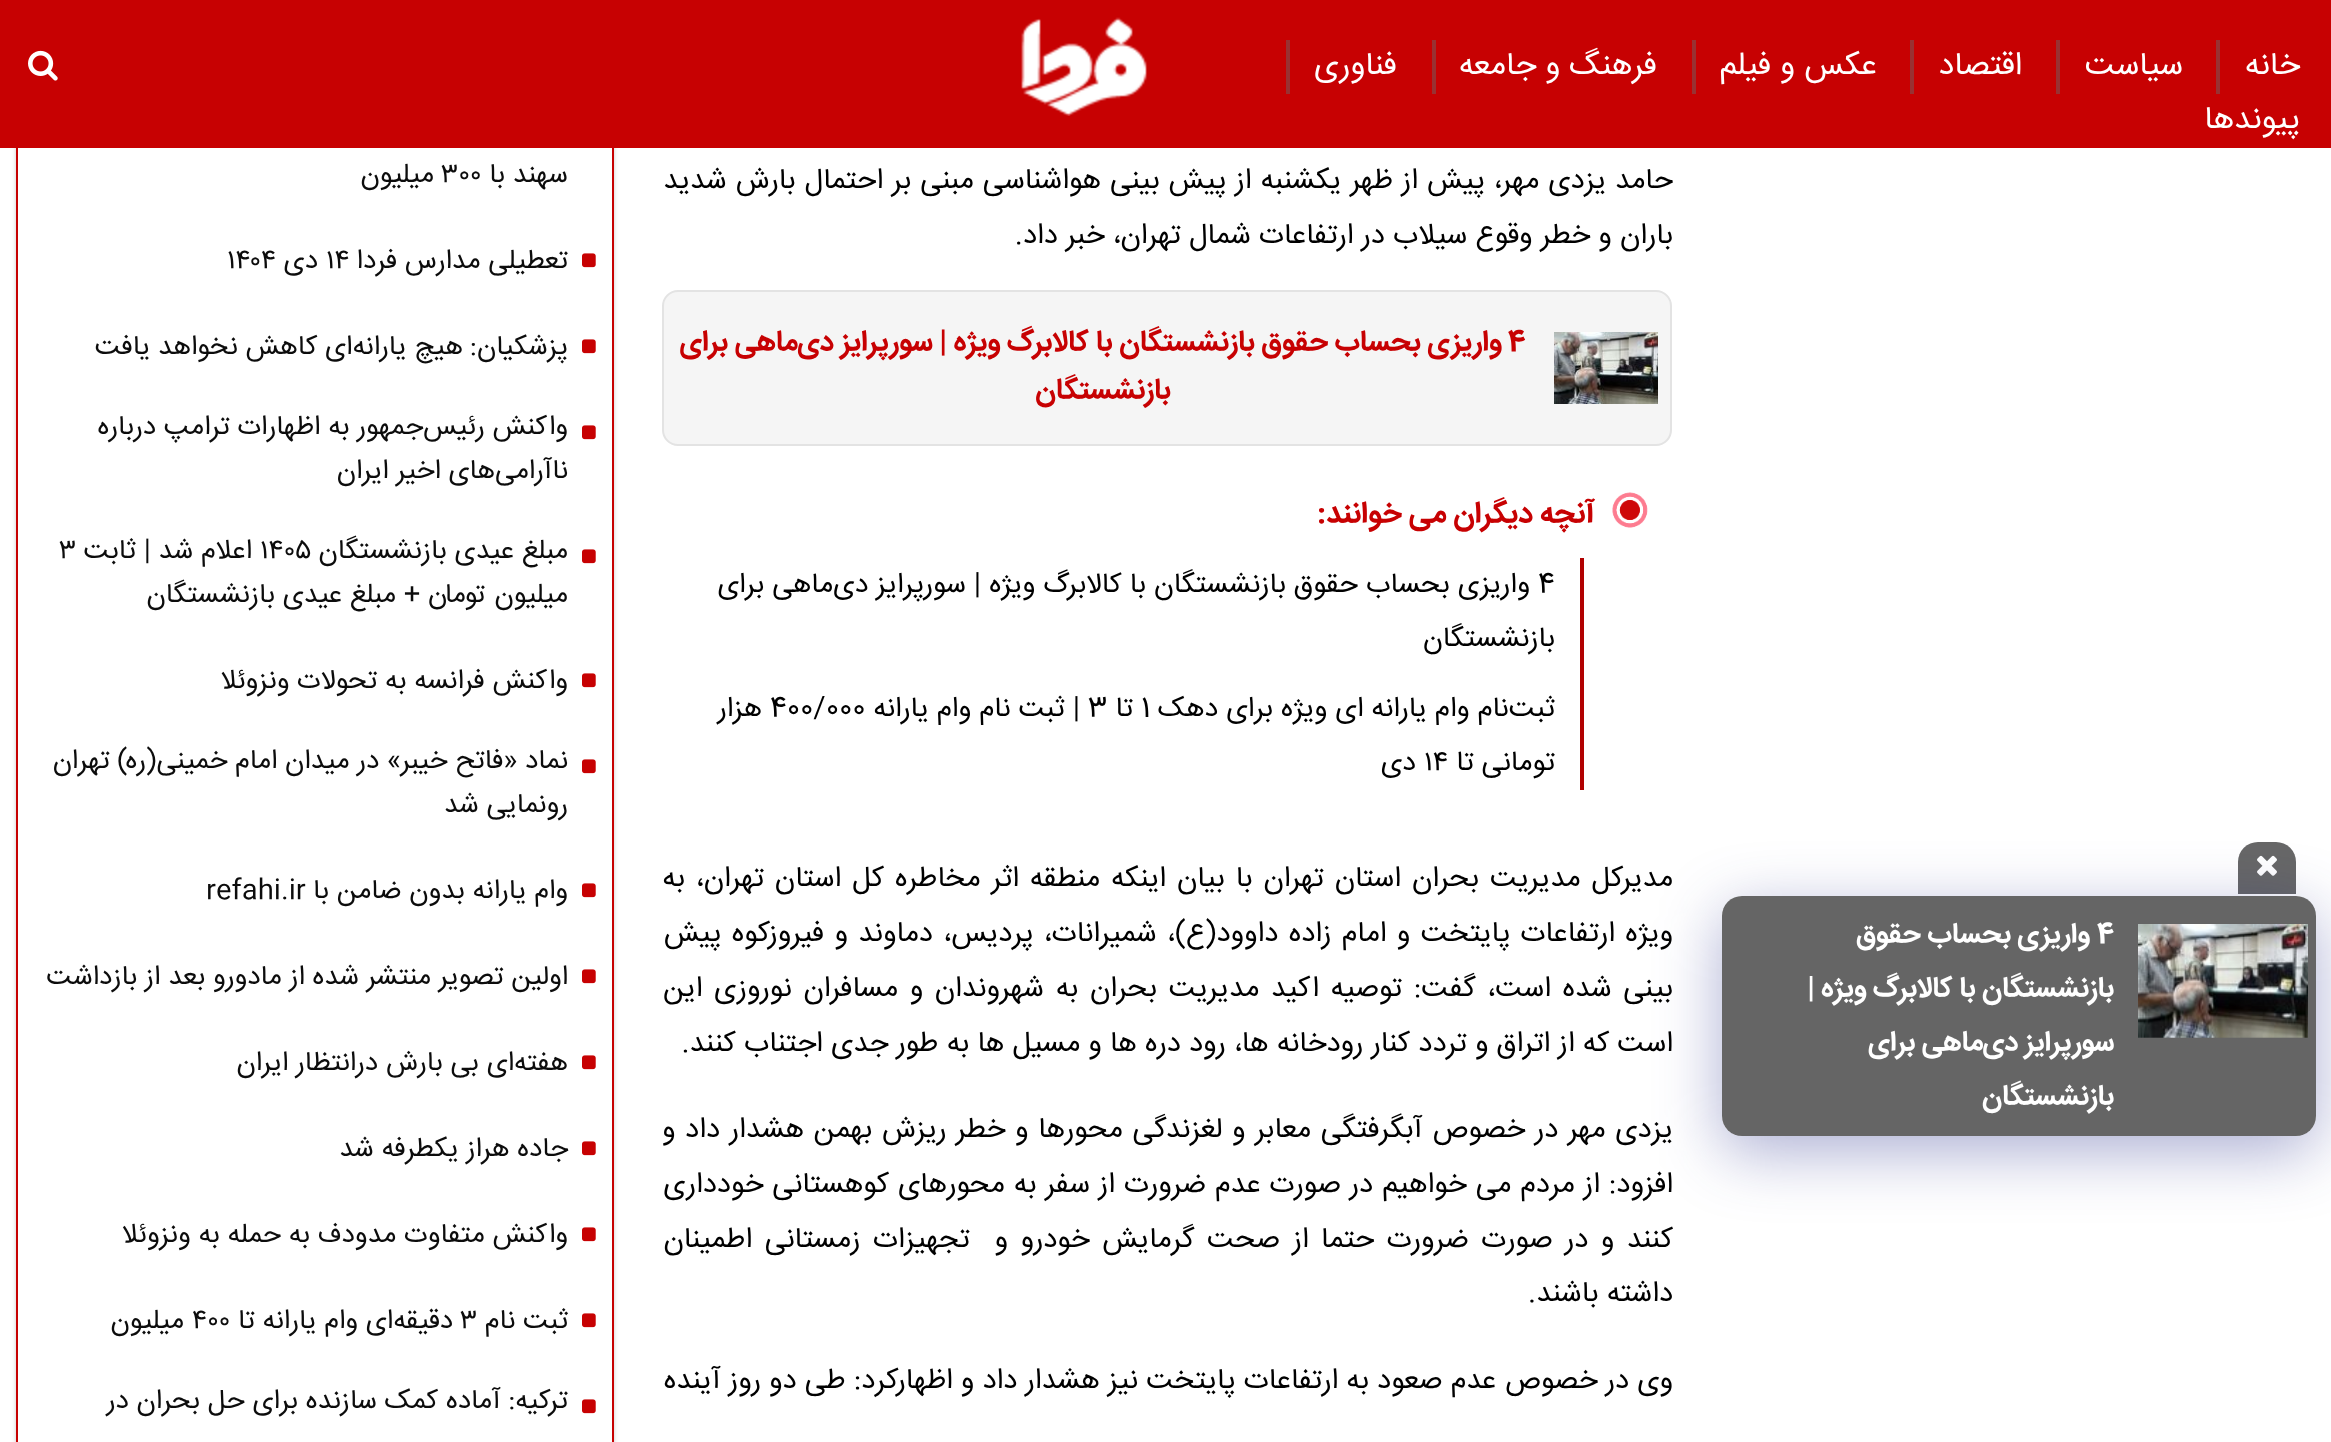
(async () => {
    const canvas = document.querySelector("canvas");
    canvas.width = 2331;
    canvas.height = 1442;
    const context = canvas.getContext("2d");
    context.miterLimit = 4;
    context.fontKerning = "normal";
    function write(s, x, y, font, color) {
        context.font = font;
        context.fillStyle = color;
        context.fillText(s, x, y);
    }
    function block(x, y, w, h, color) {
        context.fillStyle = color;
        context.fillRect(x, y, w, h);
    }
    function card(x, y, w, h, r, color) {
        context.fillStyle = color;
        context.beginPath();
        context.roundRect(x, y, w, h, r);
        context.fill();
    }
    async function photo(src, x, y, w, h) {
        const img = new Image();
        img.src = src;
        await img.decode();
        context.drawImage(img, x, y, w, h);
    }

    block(0, 0, 2331, 1442, "rgb(255, 255, 255)");
    context.save();
    context.beginPath();
    context.moveTo(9, 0);
    context.lineTo(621, 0);
    context.lineTo(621, 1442);
    context.lineTo(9, 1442);
    context.closePath();
    context.moveTo(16, -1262);
    context.lineTo(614, -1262);
    context.lineTo(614, 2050);
    context.lineTo(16, 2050);
    context.closePath();
    context.clip("evenodd");
    context.fillStyle = "rgba(0, 0, 0, 0.2)";
    context.filter = "blur(2px)";
    context.beginPath();
    context.rect(16, -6, 598, 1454);
    context.fill();
    context.filter = "none";
    context.restore();
    context.strokeStyle = "rgb(199, 1, 2)";
    context.lineWidth = 2;
    context.strokeRect(17, -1, 596, 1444);
    block(0, 0, 2331, 148, "rgb(199, 1, 2)");
    block(2216, 40, 4, 54, "rgb(153, 49, 50)");
    context.direction = "rtl";
    write("خانه", 2300, 74, "32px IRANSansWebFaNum", "rgb(255, 255, 255)");
    block(2056, 40, 4, 54, "rgb(153, 49, 50)");
    write("سیاست", 2183, 74, "32px IRANSansWebFaNum", "rgb(255, 255, 255)");
    block(1910, 40, 4, 54, "rgb(153, 49, 50)");
    write("اقتصاد", 2022, 74, "32px IRANSansWebFaNum", "rgb(255, 255, 255)");
    block(1692, 40, 4, 54, "rgb(153, 49, 50)");
    write("عکس و فیلم", 1877, 74, "32px IRANSansWebFaNum", "rgb(255, 255, 255)");
    block(1432, 40, 4, 54, "rgb(153, 49, 50)");
    write("فرهنگ و جامعه", 1657, 74, "32px IRANSansWebFaNum", "rgb(255, 255, 255)");
    block(1286, 40, 4, 54, "rgb(153, 49, 50)");
    write("فناوری", 1397, 74, "32px IRANSansWebFaNum", "rgb(255, 255, 255)");
    write("پیوند‌ها", 2300, 128, "32px IRANSansWebFaNum", "rgb(255, 255, 255)");
    await photo("media/1.png", 1021, 17, 126, 99);
    await photo("media/2.png", 28, 50, 30, 31);
    context.fillStyle = "rgb(103, 103, 103)";
    context.beginPath();
    context.roundRect(2238, 842, 58, 52, [20, 20, 0, 0]);
    context.fill();
    await photo("media/3.png", 2257, 855, 20, 21);
    context.save();
    context.beginPath();
    context.moveTo(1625, 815);
    context.lineTo(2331, 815);
    context.lineTo(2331, 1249);
    context.lineTo(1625, 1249);
    context.closePath();
    context.moveTo(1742, 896);
    context.lineTo(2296, 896);
    context.bezierCurveTo(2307, 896, 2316, 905, 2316, 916);
    context.lineTo(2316, 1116);
    context.bezierCurveTo(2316, 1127, 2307, 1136, 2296, 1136);
    context.lineTo(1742, 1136);
    context.bezierCurveTo(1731, 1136, 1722, 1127, 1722, 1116);
    context.lineTo(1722, 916);
    context.bezierCurveTo(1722, 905, 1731, 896, 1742, 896);
    context.closePath();
    context.clip("evenodd");
    context.fillStyle = "rgba(31, 38, 135, 0.37)";
    context.filter = "blur(32px)";
    context.beginPath();
    context.roundRect(1722, 912, 594, 240, 20);
    context.fill();
    context.filter = "none";
    context.restore();
    card(1722, 896, 594, 240, 20, "rgba(36, 36, 36, 0.7)");
    await photo("media/4.png", 2138, 924, 170, 114);
    context.direction = "ltr";
    write("4", 2097, 942, "bold 28px IRANSansWebFaNum", "rgb(255, 255, 255)");
    context.direction = "rtl";
    write("واریزی بحساب حقوق", 2090, 942, "bold 28px IRANSansWebFaNum", "rgb(255, 255, 255)");
    write("بازنشستگان با کالابرگ ویژه |", 2114, 996, "bold 28px IRANSansWebFaNum", "rgb(255, 255, 255)");
    write("سورپرایز دی‌ماهی برای", 2114, 1050, "bold 28px IRANSansWebFaNum", "rgb(255, 255, 255)");
    write("بازنشستگان", 2114, 1104, "bold 28px IRANSansWebFaNum", "rgb(255, 255, 255)");
    context.wordSpacing = "0.8px";
    write("حامد یزدی مهر، پیش از ظهر یکشنبه از پیش بینی هواشناسی مبنی بر احتمال بارش شدید", 1673, 188, "28.8px IRANSansWebFaNum", "rgb(0, 0, 0)");
    context.wordSpacing = "0px";
    write("باران و خطر وقوع سیلاب در ارتفاعات شمال تهران، خبر داد.", 1673, 243, "28.8px IRANSansWebFaNum", "rgb(0, 0, 0)");
    context.fillStyle = "rgb(245, 245, 245)";
    context.beginPath();
    context.roundRect(663, 291, 1008, 154, 15);
    context.fill();
    context.strokeStyle = "rgb(227, 227, 227)";
    context.stroke();
    await photo("media/5.png", 1554, 332, 104, 72);
    context.direction = "ltr";
    write("4", 1508, 350, "bold 28.8px IRANSansWebFaNum", "rgb(199, 1, 2)");
    context.direction = "rtl";
    write("واریزی بحساب حقوق بازنشستگان با کالابرگ ویژه | سورپرایز دی‌ماهی برای", 1502, 350, "bold 28.8px IRANSansWebFaNum", "rgb(199, 1, 2)");
    write("بازنشستگان", 1171, 398, "bold 28.8px IRANSansWebFaNum", "rgb(199, 1, 2)");
    await photo("media/6.png", 1612, 492, 36, 36);
    write("آنچه دیگران می خوانند:", 1595, 522, "bold 30px IRANSansWebFaNum", "rgb(199, 1, 2)");
    block(1580, 558, 4, 232, "rgb(177, 0, 0)");
    context.direction = "ltr";
    write("4", 1538, 592, "28px IRANSansWebFaNum", "rgb(0, 0, 0)");
    context.direction = "rtl";
    write("واریزی بحساب حقوق بازنشستگان با کالابرگ ویژه | سورپرایز دی‌ماهی برای", 1530, 592, "28px IRANSansWebFaNum", "rgb(0, 0, 0)");
    write("بازنشستگان", 1555, 646, "28px IRANSansWebFaNum", "rgb(0, 0, 0)");
    write("ثبت‌نام وام یارانه ای ویژه برای دهک", 1555, 716, "28px IRANSansWebFaNum", "rgb(0, 0, 0)");
    context.direction = "ltr";
    write("1", 1141, 716, "28px IRANSansWebFaNum", "rgb(0, 0, 0)");
    context.direction = "rtl";
    write("تا", 1133, 716, "28px IRANSansWebFaNum", "rgb(0, 0, 0)");
    context.direction = "ltr";
    write("3", 1088, 716, "28px IRANSansWebFaNum", "rgb(0, 0, 0)");
    context.direction = "rtl";
    write("| ثبت نام وام یارانه", 1080, 716, "28px IRANSansWebFaNum", "rgb(0, 0, 0)");
    context.direction = "ltr";
    write("400/000", 770, 716, "28px IRANSansWebFaNum", "rgb(0, 0, 0)");
    context.direction = "rtl";
    write("هزار", 762, 716, "28px IRANSansWebFaNum", "rgb(0, 0, 0)");
    write("تومانی تا", 1555, 770, "28px IRANSansWebFaNum", "rgb(0, 0, 0)");
    context.direction = "ltr";
    write("۱۴", 1424, 770, "28px IRANSansWebFaNum", "rgb(0, 0, 0)");
    context.direction = "rtl";
    write("دی", 1416, 770, "28px IRANSansWebFaNum", "rgb(0, 0, 0)");
    context.wordSpacing = "2.75px";
    write("مدیرکل مدیریت بحران استان تهران با بیان اینکه منطقه اثر مخاطره کل استان تهران، به", 1673, 886, "28.8px IRANSansWebFaNum", "rgb(0, 0, 0)");
    context.wordSpacing = "2.25px";
    write("ویژه ارتفاعات پایتخت و امام زاده داوود(ع)، شمیرانات، پردیس، دماوند و فیروزکوه پیش", 1673, 941, "28.8px IRANSansWebFaNum", "rgb(0, 0, 0)");
    context.wordSpacing = "3.5px";
    write("بینی شده است، گفت: توصیه اکید مدیریت بحران به شهروندان و مسافران نوروزی این", 1673, 996, "28.8px IRANSansWebFaNum", "rgb(0, 0, 0)");
    context.wordSpacing = "0px";
    write("است که از اتراق و تردد کنار رودخانه ها، رود دره ها و مسیل ها به طور جدی اجتناب کنند.", 1673, 1051, "28.8px IRANSansWebFaNum", "rgb(0, 0, 0)");
    context.wordSpacing = "1.5px";
    write("یزدی مهر در خصوص آبگرفتگی معابر و لغزندگی محورها و خطر ریزش بهمن هشدار داد و", 1673, 1137, "28.8px IRANSansWebFaNum", "rgb(0, 0, 0)");
    context.wordSpacing = "0.8px";
    write("افزود: از مردم می خواهیم در صورت عدم ضرورت از سفر به محورهای کوهستانی خودداری", 1673, 1192, "28.8px IRANSansWebFaNum", "rgb(0, 0, 0)");
    context.wordSpacing = "4.25px";
    write("کنند و در صورت ضرورت حتما از صحت گرمایش خودرو و  تجهیزات زمستانی اطمینان", 1673, 1247, "28.8px IRANSansWebFaNum", "rgb(0, 0, 0)");
    context.wordSpacing = "0px";
    write("داشته باشند.", 1673, 1301, "28.8px IRANSansWebFaNum", "rgb(0, 0, 0)");
    write("وی در خصوص عدم صعود به ارتفاعات پایتخت نیز هشدار داد و اظهارکرد: طی دو روز آینده", 1673, 1388, "28.8px IRANSansWebFaNum", "rgb(0, 0, 0)");
    write("سهند با", 568, 182, "27.25px IRANSansWebFaNum", "rgb(12, 12, 12)");
    context.direction = "ltr";
    write("۳۰۰", 441, 182, "27.25px IRANSansWebFaNum", "rgb(12, 12, 12)");
    context.direction = "rtl";
    write("میلیون", 434, 182, "27.25px IRANSansWebFaNum", "rgb(12, 12, 12)");
    await photo("media/7.png", 582, 253, 14, 15);
    write("تعطیلی مدارس فردا", 568, 268, "27.25px IRANSansWebFaNum", "rgb(12, 12, 12)");
    context.direction = "ltr";
    write("۱۴", 326, 268, "27.25px IRANSansWebFaNum", "rgb(12, 12, 12)");
    context.direction = "rtl";
    write("دی", 318, 268, "27.25px IRANSansWebFaNum", "rgb(12, 12, 12)");
    context.direction = "ltr";
    write("۱۴۰۴", 227, 268, "27.25px IRANSansWebFaNum", "rgb(12, 12, 12)");
    await photo("media/7.png", 582, 339, 14, 15);
    context.direction = "rtl";
    write("پزشکیان:", 568, 354, "27.25px IRANSansWebFaNum", "rgb(12, 12, 12)");
    write("هیچ یارانه‌ای کاهش نخواهد یافت", 463, 354, "27.25px IRANSansWebFaNum", "rgb(12, 12, 12)");
    await photo("media/7.png", 582, 425, 14, 15);
    write("واکنش رئیس‌جمهور به اظهارات ترامپ درباره", 568, 434, "27.25px IRANSansWebFaNum", "rgb(12, 12, 12)");
    write("ناآرامی‌های اخیر ایران", 568, 478, "27.25px IRANSansWebFaNum", "rgb(12, 12, 12)");
    await photo("media/7.png", 582, 549, 14, 15);
    write("مبلغ عیدی بازنشستگان", 568, 558, "27.25px IRANSansWebFaNum", "rgb(12, 12, 12)");
    context.direction = "ltr";
    write("۱۴۰۵", 260, 558, "27.25px IRANSansWebFaNum", "rgb(12, 12, 12)");
    context.direction = "rtl";
    write("اعلام شد | ثابت", 252, 558, "27.25px IRANSansWebFaNum", "rgb(12, 12, 12)");
    context.direction = "ltr";
    write("۳", 59, 558, "27.25px IRANSansWebFaNum", "rgb(12, 12, 12)");
    context.direction = "rtl";
    write("میلیون تومان + مبلغ عیدی بازنشستگان", 568, 602, "27.25px IRANSansWebFaNum", "rgb(12, 12, 12)");
    await photo("media/7.png", 582, 673, 14, 15);
    write("واکنش فرانسه به تحولات ونزوئلا", 568, 688, "27.25px IRANSansWebFaNum", "rgb(12, 12, 12)");
    await photo("media/7.png", 582, 759, 14, 15);
    write("نماد «فاتح خیبر» در میدان امام خمینی(ره) تهران", 568, 768, "27.25px IRANSansWebFaNum", "rgb(12, 12, 12)");
    write("رونمایی شد", 568, 812, "27.25px IRANSansWebFaNum", "rgb(12, 12, 12)");
    await photo("media/7.png", 582, 883, 14, 15);
    write("وام یارانه بدون ضامن با", 568, 898, "27.25px IRANSansWebFaNum", "rgb(12, 12, 12)");
    context.direction = "ltr";
    write("refahi.ir", 206, 898, "27.25px IRANSansWebFaNum", "rgb(12, 12, 12)");
    await photo("media/7.png", 582, 969, 14, 15);
    context.direction = "rtl";
    write("اولین تصویر منتشر شده از مادورو بعد از بازداشت", 568, 984, "27.25px IRANSansWebFaNum", "rgb(12, 12, 12)");
    await photo("media/7.png", 582, 1055, 14, 15);
    write("هفته‌ای بی بارش درانتظار ایران", 568, 1070, "27.25px IRANSansWebFaNum", "rgb(12, 12, 12)");
    await photo("media/7.png", 582, 1141, 14, 15);
    write("جاده هراز یکطرفه شد", 568, 1156, "27.25px IRANSansWebFaNum", "rgb(12, 12, 12)");
    await photo("media/7.png", 582, 1227, 14, 15);
    write("واکنش متفاوت مدودف به حمله به ونزوئلا", 568, 1242, "27.25px IRANSansWebFaNum", "rgb(12, 12, 12)");
    await photo("media/7.png", 582, 1313, 14, 15);
    write("ثبت نام", 568, 1328, "27.25px IRANSansWebFaNum", "rgb(12, 12, 12)");
    context.direction = "ltr";
    write("۳", 460, 1328, "27.25px IRANSansWebFaNum", "rgb(12, 12, 12)");
    context.direction = "rtl";
    write("دقیقه‌ای وام یارانه تا", 453, 1328, "27.25px IRANSansWebFaNum", "rgb(12, 12, 12)");
    context.direction = "ltr";
    write("۴۰۰", 192, 1328, "27.25px IRANSansWebFaNum", "rgb(12, 12, 12)");
    context.direction = "rtl";
    write("میلیون", 184, 1328, "27.25px IRANSansWebFaNum", "rgb(12, 12, 12)");
    await photo("media/7.png", 582, 1399, 14, 15);
    write("ترکیه: آماده کمک سازنده برای حل بحران در", 568, 1408, "27.25px IRANSansWebFaNum", "rgb(12, 12, 12)");
})();
